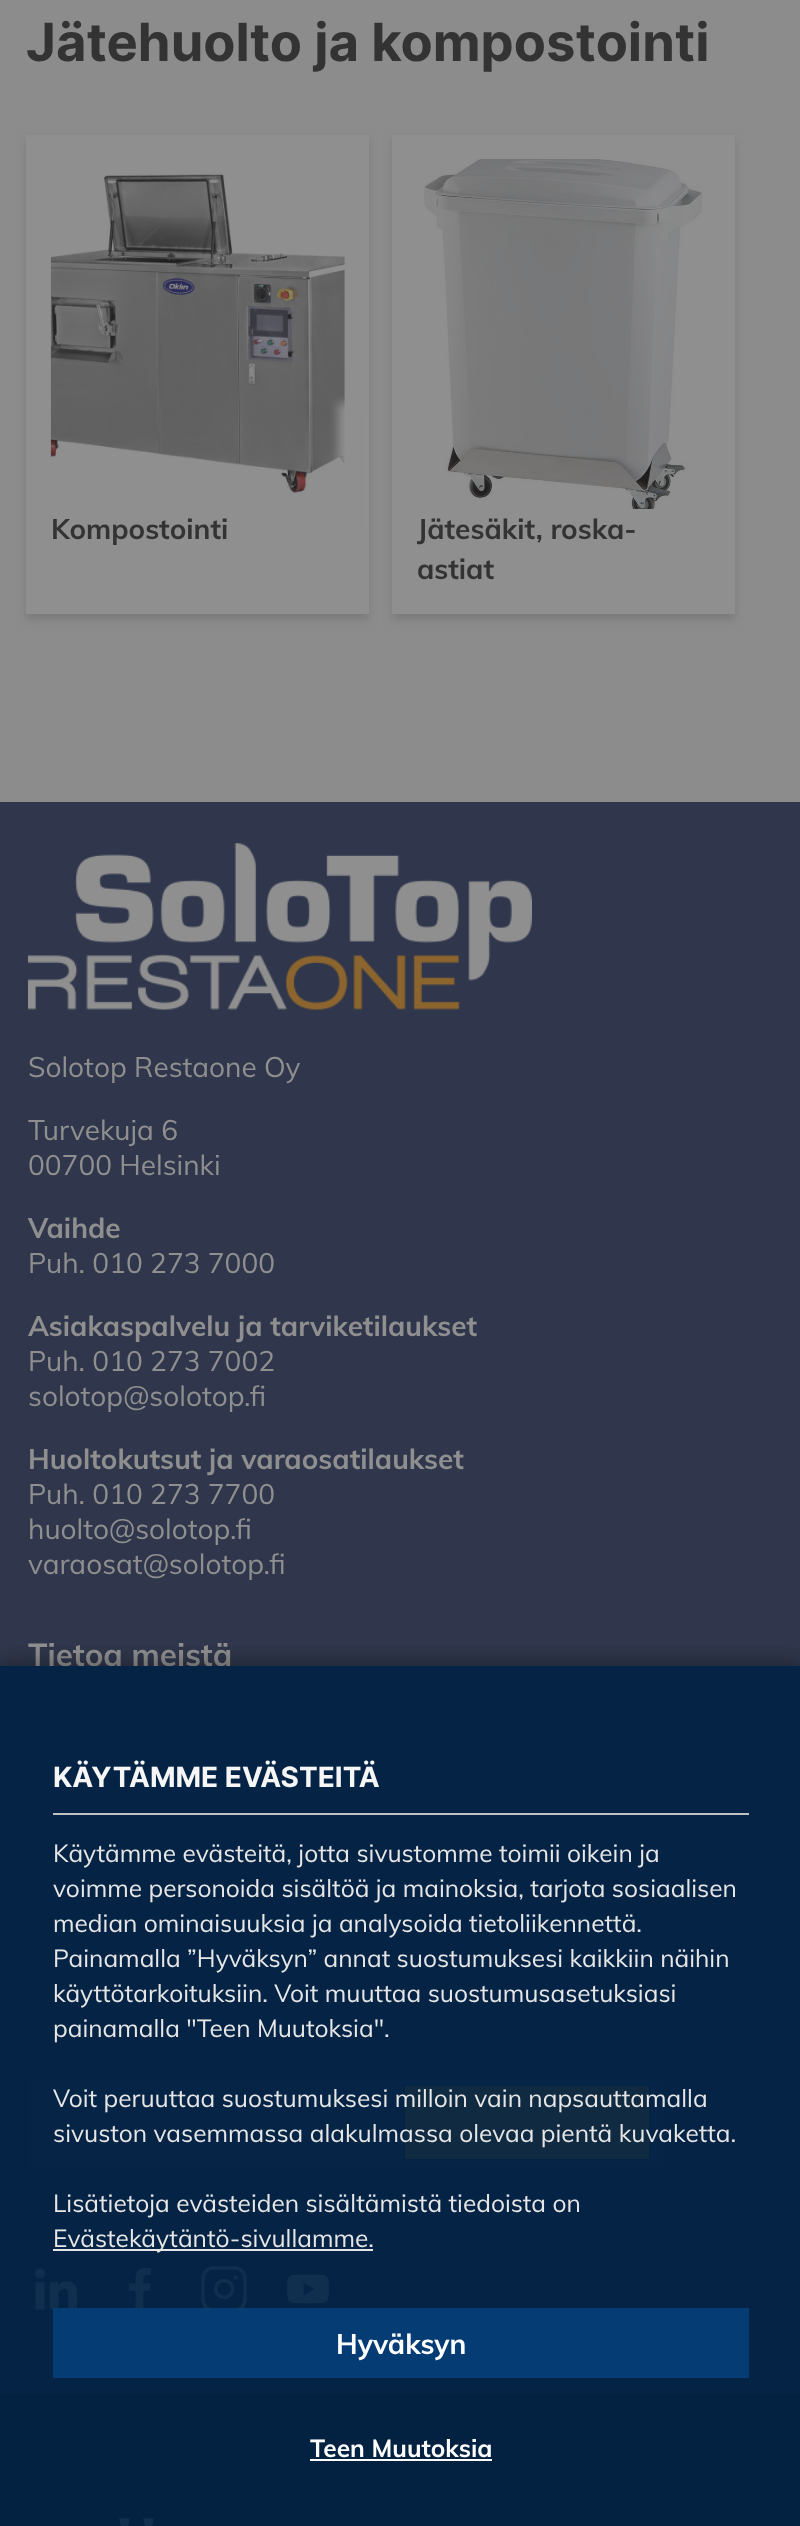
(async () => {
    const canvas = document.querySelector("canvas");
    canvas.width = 800;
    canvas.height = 2526;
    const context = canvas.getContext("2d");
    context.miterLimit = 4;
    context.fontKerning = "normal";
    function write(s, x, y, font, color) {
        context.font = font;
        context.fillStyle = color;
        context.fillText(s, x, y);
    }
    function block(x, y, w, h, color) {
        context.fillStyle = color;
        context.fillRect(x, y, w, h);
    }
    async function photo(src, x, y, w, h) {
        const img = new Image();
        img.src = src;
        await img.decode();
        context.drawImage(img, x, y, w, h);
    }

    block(0, 0, 800, 2526, "rgb(140, 140, 141)");
    write("Jätehuolto ja kompostointi", 26, 61, "bold 52.5px Inter", "rgb(51, 51, 51)");
    context.fillStyle = "rgb(124, 123, 123)";
    context.filter = "blur(4.5px)";
    context.beginPath();
    context.rect(26, 140, 343, 480);
    context.fill();
    context.filter = "none";
    block(26, 135, 343, 479, "rgb(143, 143, 143)");
    await photo("media/1.png", 50, 174, 295, 320);
    context.filter = "blur(5px)";
    context.beginPath();
    context.rect(338, 403, 17, 140);
    context.fill();
    context.filter = "none";
    write("Kompostointi", 51, 539, "bold 28px Mulish", "rgb(51, 51, 51)");
    context.fillStyle = "rgb(124, 123, 123)";
    context.filter = "blur(4.5px)";
    context.beginPath();
    context.rect(392, 140, 343, 480);
    context.fill();
    context.filter = "none";
    block(392, 135, 343, 479, "rgb(143, 143, 143)");
    await photo("media/2.png", 424, 159, 279, 350);
    context.save();
    context.beginPath();
    context.rect(417, 159, 294, 431);
    context.clip();
    write("Jätesäkit, roska-", 417, 539, "bold 28px Mulish", "rgb(51, 51, 51)");
    context.restore();
    write("astiat", 417, 579, "bold 28px Mulish", "rgb(51, 51, 51)");
    block(0, 802, 800, 1592, "rgb(48, 55, 76)");
    await photo("media/3.png", 28, 843, 504, 167);
    write("Solotop Restaone Oy", 28, 1077, "28px Mulish", "rgb(143, 143, 143)");
    write("Turvekuja 6", 28, 1140, "28px Mulish", "rgb(143, 143, 143)");
    write("00700 Helsinki", 28, 1175, "28px Mulish", "rgb(143, 143, 143)");
    write("Vaihde", 28, 1238, "bold 28px Mulish", "rgb(143, 143, 143)");
    write("Puh. 010 273 7000", 28, 1273, "28px Mulish", "rgb(143, 143, 143)");
    write("Asiakaspalvelu ja tarviketilaukset", 28, 1336, "bold 28px Mulish", "rgb(143, 143, 143)");
    write("Puh. 010 273 7002", 28, 1371, "28px Mulish", "rgb(143, 143, 143)");
    write("solotop@solotop.fi", 28, 1406, "28px Mulish", "rgb(143, 143, 143)");
    write("Huoltokutsut ja varaosatilaukset", 28, 1469, "bold 28px Mulish", "rgb(143, 143, 143)");
    write("Puh. 010 273 7700", 28, 1504, "28px Mulish", "rgb(143, 143, 143)");
    write("huolto@solotop.fi", 28, 1539, "28px Mulish", "rgb(143, 143, 143)");
    write("varaosat@solotop.fi", 28, 1574, "28px Mulish", "rgb(143, 143, 143)");
    write("Tietoa meistä", 28, 1666, "bold 31.5px Mulish", "rgb(143, 143, 143)");
    context.fillStyle = "rgb(55, 60, 78)";
    context.beginPath();
    context.roundRect(29, 2077, 635, 92, 1);
    context.fill();
    context.strokeStyle = "rgb(31, 55, 80)";
    context.lineWidth = 2;
    context.stroke();
    context.fillStyle = "rgb(143, 107, 45)";
    context.beginPath();
    context.rect(404, 2085, 246, 75);
    context.fill();
    context.stroke();
    await photo("media/4.png", 35, 2268, 42, 42);
    await photo("media/5.png", 129, 2268, 22, 40);
    await photo("media/6.png", 201, 2266, 46, 42);
    await photo("media/7.png", 287, 2274, 42, 30);
    block(0, 2394, 800, 132, "rgb(28, 28, 28)");
    await photo("media/8.png", 119, 2518, 35, 8);
    context.save();
    context.beginPath();
    context.rect(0, 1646, 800, 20);
    context.clip();
    context.fillStyle = "rgba(0, 0, 0, 0.35)";
    context.filter = "blur(10.5px)";
    context.beginPath();
    context.rect(-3, 1663, 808, 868);
    context.fill();
    context.filter = "none";
    context.restore();
    block(0, 1666, 800, 860, "rgba(0, 34, 68, 0.89)");
    block(53, 1813, 696, 2, "rgb(193, 193, 193)");
    write("KÄYTÄMME EVÄSTEITÄ", 53, 1787, "bold 28px Inter", "rgb(246, 246, 246)");
    write("Käytämme evästeitä, jotta sivustomme toimii oikein ja", 53, 1862, "24.5px Mulish", "rgb(230, 230, 230)");
    write("voimme personoida sisältöä ja mainoksia, tarjota sosiaalisen", 53, 1897, "24.5px Mulish", "rgb(230, 230, 230)");
    write("median ominaisuuksia ja analysoida tietoliikennettä.", 53, 1932, "24.5px Mulish", "rgb(230, 230, 230)");
    write("Painamalla ”Hyväksyn” annat suostumuksesi kaikkiin näihin", 53, 1967, "24.5px Mulish", "rgb(230, 230, 230)");
    write("käyttötarkoituksiin. Voit muuttaa suostumusasetuksiasi", 53, 2002, "24.5px Mulish", "rgb(230, 230, 230)");
    write("painamalla \"Teen Muutoksia\".", 53, 2037, "24.5px Mulish", "rgb(230, 230, 230)");
    write("Voit peruuttaa suostumuksesi milloin vain napsauttamalla", 53, 2107, "24.5px Mulish", "rgb(230, 230, 230)");
    write("sivuston vasemmassa alakulmassa olevaa pientä kuvaketta.", 53, 2142, "24.5px Mulish", "rgb(230, 230, 230)");
    write("Lisätietoja evästeiden sisältämistä tiedoista on", 53, 2212, "24.5px Mulish", "rgb(230, 230, 230)");
    block(53, 2249, 320, 2, "rgb(230, 230, 230)");
    write("Evästekäytäntö-sivullamme.", 53, 2247, "24.5px Mulish", "rgb(230, 230, 230)");
    block(53, 2308, 696, 70, "rgb(6, 60, 116)");
    write("Hyväksyn", 336, 2354, "bold 28px Mulish", "rgb(255, 255, 255)");
    write("Teen Muutoksia", 310, 2457, "bold 24.5px Mulish", "rgb(255, 255, 255)");
    block(310, 2459, 182, 2, "rgb(255, 255, 255)");
})();
